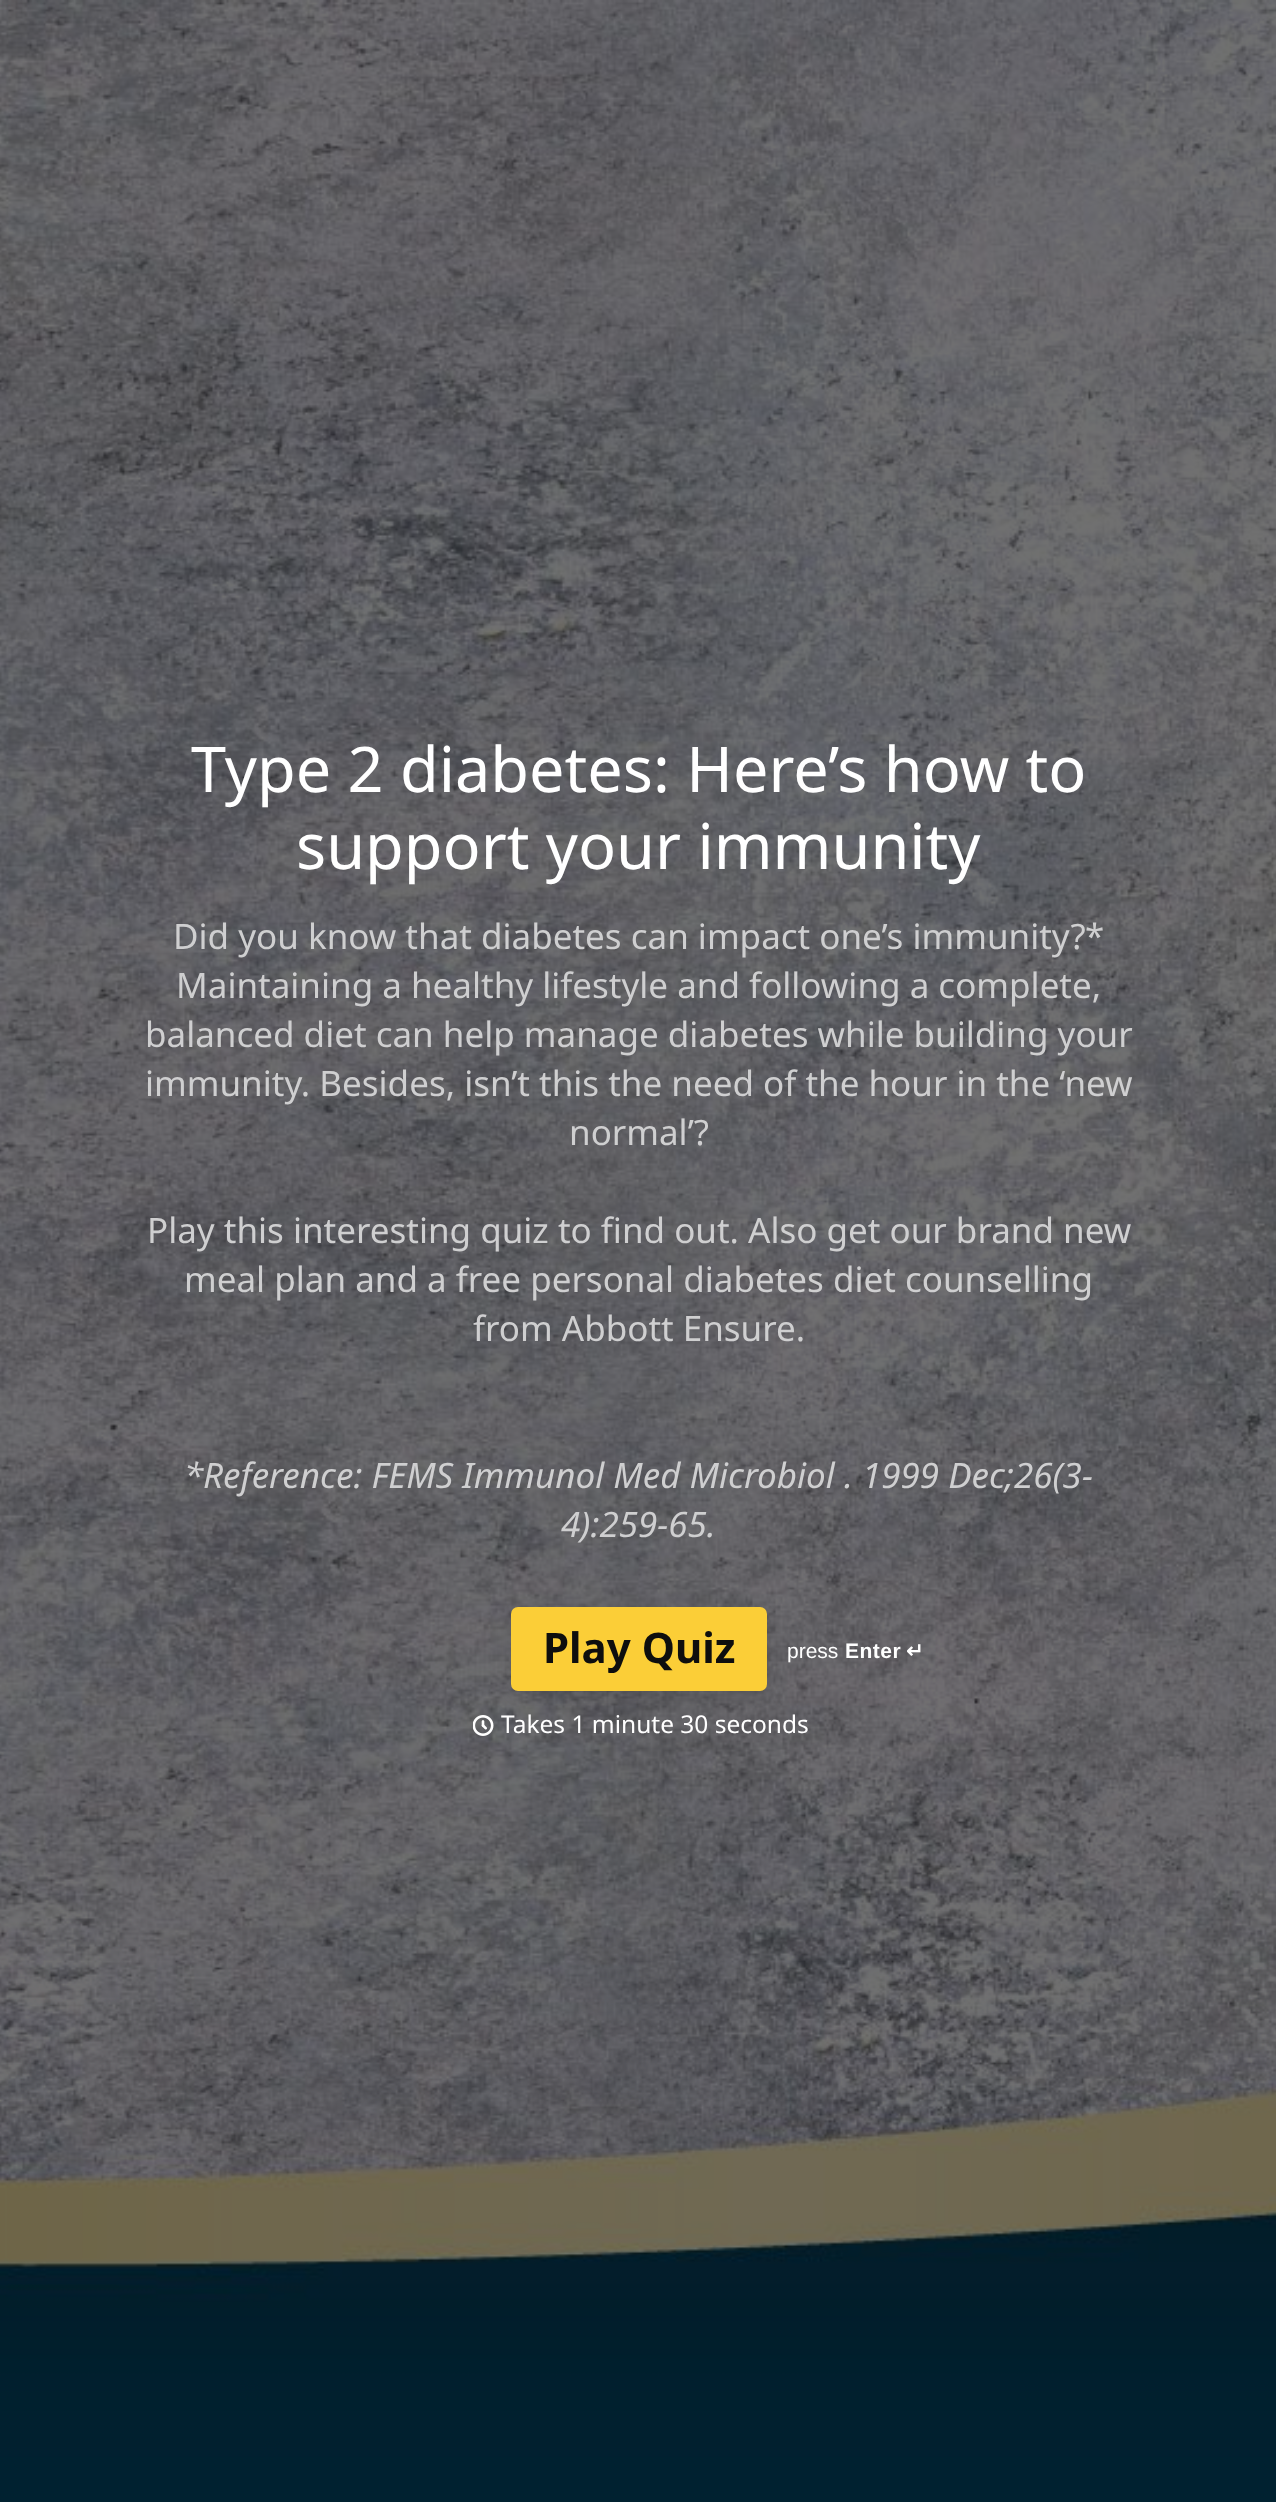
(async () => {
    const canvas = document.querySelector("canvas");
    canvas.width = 1276;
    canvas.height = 2502;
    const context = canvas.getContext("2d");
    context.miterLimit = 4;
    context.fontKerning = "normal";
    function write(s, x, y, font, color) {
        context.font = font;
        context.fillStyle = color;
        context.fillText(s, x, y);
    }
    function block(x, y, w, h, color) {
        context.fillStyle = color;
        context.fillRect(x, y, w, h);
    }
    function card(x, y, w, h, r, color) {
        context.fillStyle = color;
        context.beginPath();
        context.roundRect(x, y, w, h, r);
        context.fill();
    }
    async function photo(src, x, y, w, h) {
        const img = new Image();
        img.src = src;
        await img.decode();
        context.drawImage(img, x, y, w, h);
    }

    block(0, 0, 1276, 2502, "rgb(255, 255, 255)");
    await photo("media/1.png", 0, 0, 1276, 2502);
    write("Type 2 diabetes: Here’s how to", 191, 792, "63px Noto Sans", "rgb(255, 255, 255)");
    write("support your immunity", 296, 869, "63px Noto Sans", "rgb(255, 255, 255)");
    write("Did you know that diabetes can impact one’s immunity?", 173, 949, "35px Noto Sans", "rgb(207, 207, 208)");
    write("*", 1085, 949, "35px Noto Sans", "rgb(207, 207, 208)");
    write("Maintaining a healthy lifestyle and following a complete,", 176, 998, "35px Noto Sans", "rgb(207, 207, 208)");
    write("balanced diet can help manage diabetes while building your", 145, 1047, "35px Noto Sans", "rgb(207, 207, 208)");
    write("immunity. Besides, isn’t this the need of the hour in the ‘new", 145, 1096, "35px Noto Sans", "rgb(207, 207, 208)");
    write("normal’?", 569, 1145, "35px Noto Sans", "rgb(207, 207, 208)");
    write("Play this interesting quiz to find out. Also get our brand new", 147, 1243, "35px Noto Sans", "rgb(207, 207, 208)");
    write("meal plan and a free personal diabetes diet counselling", 184, 1292, "35px Noto Sans", "rgb(207, 207, 208)");
    write("from Abbott Ensure.", 473, 1341, "35px Noto Sans", "rgb(207, 207, 208)");
    write("*", 184, 1488, "italic 35px Noto Sans", "rgb(207, 207, 208)");
    write("Reference: FEMS Immunol Med Microbiol . 1999 Dec;26(3-", 203, 1488, "italic 35px Noto Sans", "rgb(207, 207, 208)");
    write("4):259-65.", 561, 1537, "italic 35px Noto Sans", "rgb(207, 207, 208)");
    context.fillStyle = "rgba(0, 0, 0, 0.1)";
    context.filter = "blur(10.5px)";
    context.beginPath();
    context.roundRect(511, 1612, 256, 84, 7);
    context.fill();
    context.filter = "none";
    card(511, 1607, 256, 84, 7, "rgb(251, 206, 55)");
    write("Play Quiz", 543, 1663, "bold 42px Noto Sans", "rgb(14, 14, 14)");
    write("press", 787, 1658, "21px Liberation Sans", "rgb(255, 255, 255)");
    context.letterSpacing = "0.5px";
    write("Enter", 845, 1658, "bold 21px Liberation Sans", "rgb(255, 255, 255)");
    write("↵", 906, 1658, "bold 21px DejaVu Sans", "rgb(255, 255, 255)");
    await photo("media/2.png", 473, 1715, 21, 21);
    context.letterSpacing = "0px";
    write("Takes 1 minute 30 seconds", 501, 1733, "24.5px Noto Sans", "rgb(255, 255, 255)");
})();
